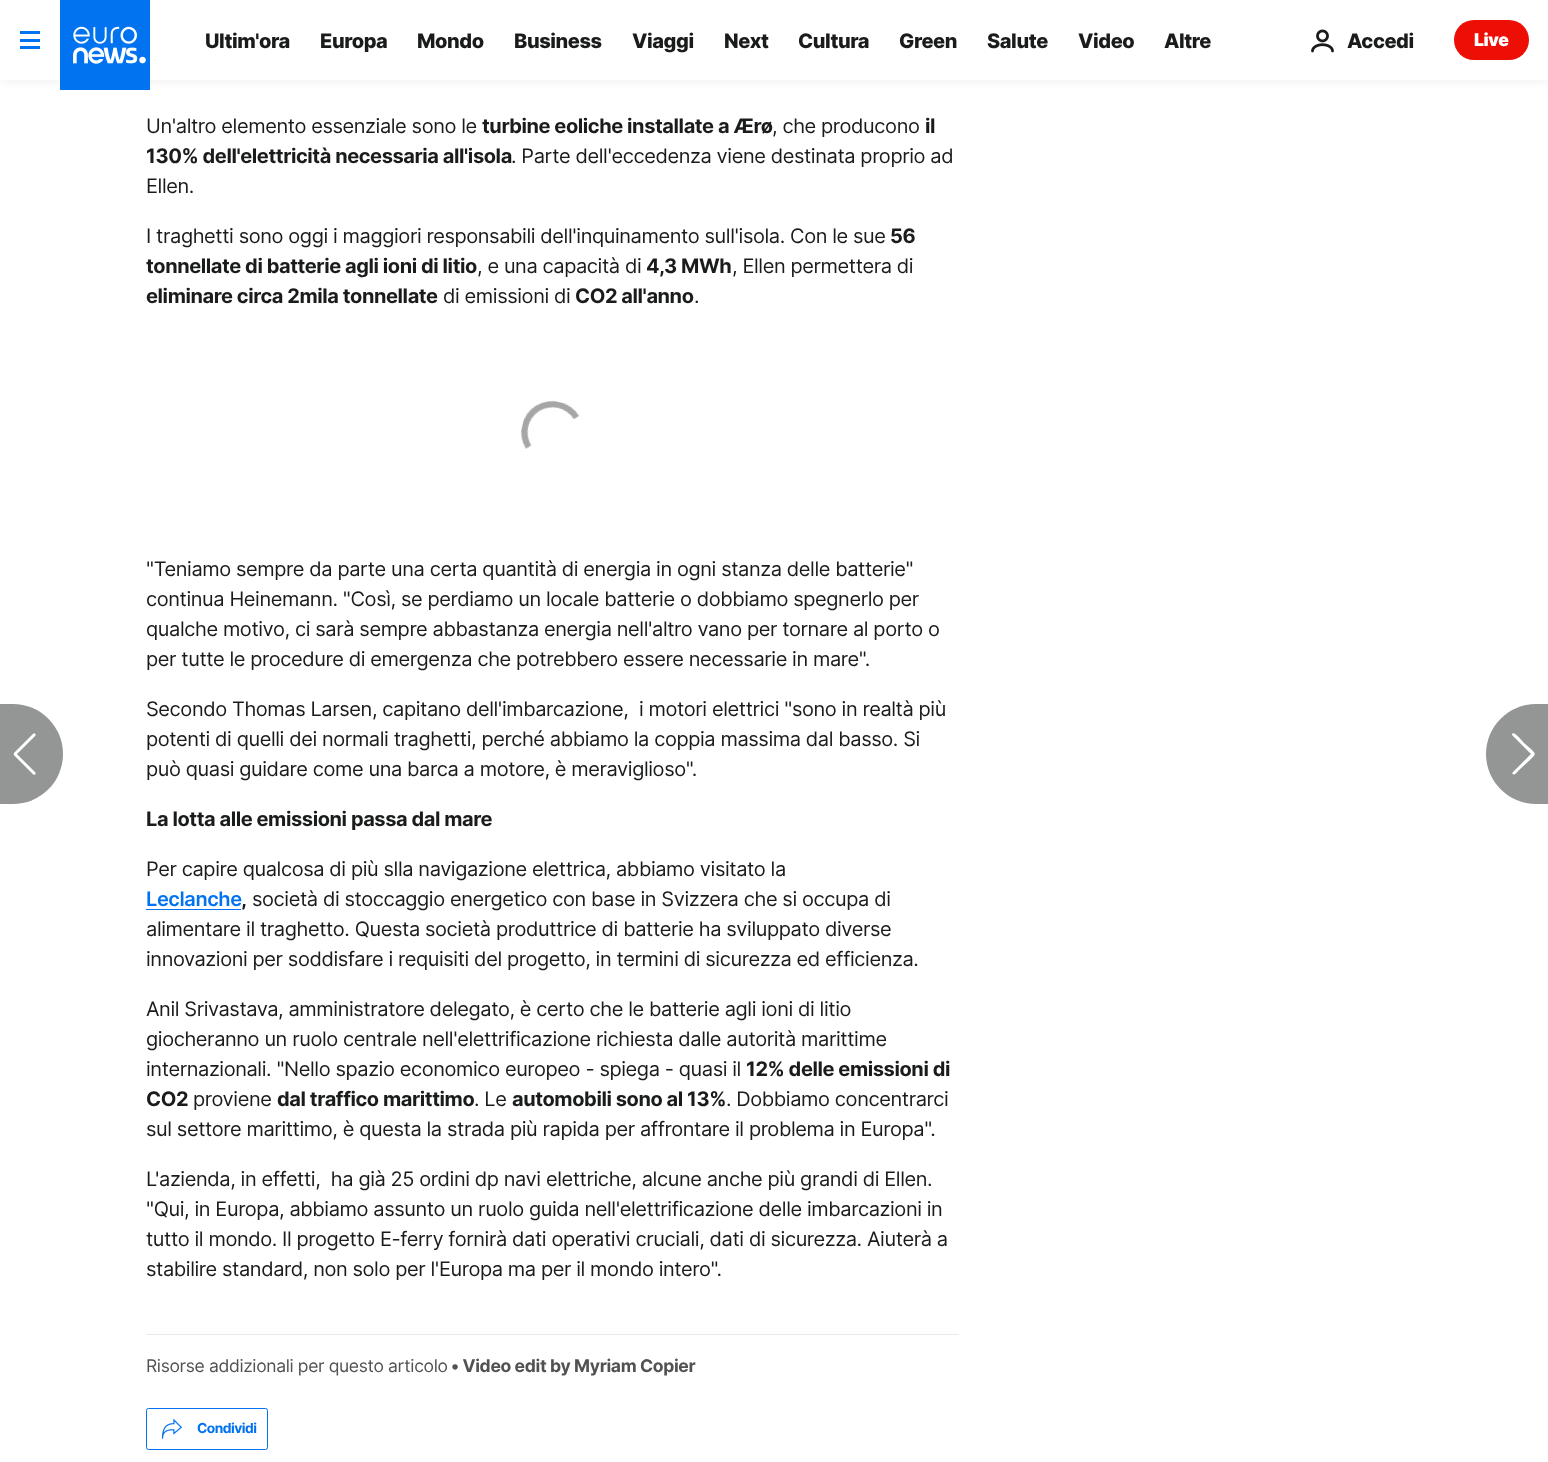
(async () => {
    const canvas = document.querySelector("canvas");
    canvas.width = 1548;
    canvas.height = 1462;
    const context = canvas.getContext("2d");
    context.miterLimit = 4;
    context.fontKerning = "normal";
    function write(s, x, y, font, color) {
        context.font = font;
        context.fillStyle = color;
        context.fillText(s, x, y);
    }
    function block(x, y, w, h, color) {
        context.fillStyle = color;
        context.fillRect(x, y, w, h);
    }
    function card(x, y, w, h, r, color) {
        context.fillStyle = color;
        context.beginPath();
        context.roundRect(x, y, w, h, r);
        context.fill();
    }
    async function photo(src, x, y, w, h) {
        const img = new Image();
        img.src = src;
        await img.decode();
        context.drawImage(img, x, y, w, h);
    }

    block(0, 0, 1548, 1462, "rgb(255, 255, 255)");
    context.fillStyle = "rgba(0, 0, 0, 0.07)";
    context.filter = "blur(6px)";
    context.beginPath();
    context.rect(0, -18, 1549, 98);
    context.fill();
    context.filter = "none";
    block(0, 0, 1548, 80, "rgb(255, 255, 255)");
    block(20, 31, 20, 3, "rgb(1, 114, 240)");
    block(20, 39, 20, 3, "rgb(1, 114, 240)");
    block(20, 46, 20, 3, "rgb(1, 114, 240)");
    await photo("media/1.png", 60, 0, 90, 90);
    context.letterSpacing = "-0.4px";
    write("Ultim'ora", 205, 48, "800 20px Inter", "rgb(26, 27, 27)");
    write("Europa", 320, 48, "800 20px Inter", "rgb(26, 27, 27)");
    write("Mondo", 417, 48, "800 20px Inter", "rgb(26, 27, 27)");
    write("Business", 514, 48, "800 20px Inter", "rgb(26, 27, 27)");
    write("Viaggi", 632, 48, "800 20px Inter", "rgb(26, 27, 27)");
    write("Next", 724, 48, "800 20px Inter", "rgb(26, 27, 27)");
    write("Cultura", 798, 48, "800 20px Inter", "rgb(26, 27, 27)");
    write("Green", 899, 48, "800 20px Inter", "rgb(26, 27, 27)");
    write("Salute", 987, 48, "800 20px Inter", "rgb(26, 27, 27)");
    write("Video", 1078, 48, "800 20px Inter", "rgb(26, 27, 27)");
    write("Altre", 1164, 48, "800 20px Inter", "rgb(26, 27, 27)");
    await photo("media/2.png", 1311, 29, 23, 24);
    write("Accedi", 1347, 48, "800 20px Inter", "rgb(26, 27, 27)");
    card(1454, 20, 75, 40, 20, "rgb(237, 14, 5)");
    write("Live", 1474, 46, "900 17.5px Inter", "rgb(255, 255, 255)");
    write("Un'altro elemento essenziale sono le", 146, 133, "20px Inter", "rgb(26, 27, 27)");
    write("turbine eoliche installate a Ærø", 482, 133, "bold 20px Inter", "rgb(26, 27, 27)");
    write(", che producono", 772, 133, "20px Inter", "rgb(26, 27, 27)");
    write("il", 925, 133, "bold 20px Inter", "rgb(26, 27, 27)");
    write("130% dell'elettricità necessaria all'isola", 146, 163, "bold 20px Inter", "rgb(26, 27, 27)");
    write(". Parte dell'eccedenza viene destinata proprio ad", 511, 163, "20px Inter", "rgb(26, 27, 27)");
    write("Ellen.", 146, 193, "20px Inter", "rgb(26, 27, 27)");
    write("I traghetti sono oggi i maggiori responsabili dell'inquinamento sull'isola. Con le sue", 146, 243, "20px Inter", "rgb(26, 27, 27)");
    write("56", 890, 243, "bold 20px Inter", "rgb(26, 27, 27)");
    write("tonnellate di batterie agli ioni di litio", 146, 273, "bold 20px Inter", "rgb(26, 27, 27)");
    write(", e una capacità di", 477, 273, "20px Inter", "rgb(26, 27, 27)");
    write("4,3 MWh", 646, 273, "bold 20px Inter", "rgb(26, 27, 27)");
    write(", Ellen permettera di", 732, 273, "20px Inter", "rgb(26, 27, 27)");
    write("eliminare circa 2mila tonnellate", 146, 303, "bold 20px Inter", "rgb(26, 27, 27)");
    write("di emissioni di", 443, 303, "20px Inter", "rgb(26, 27, 27)");
    write("CO2 all'anno", 575, 303, "bold 20px Inter", "rgb(26, 27, 27)");
    write(".", 694, 303, "20px Inter", "rgb(26, 27, 27)");
    await photo("media/3.png", 520, 400, 60, 49);
    write("\"Teniamo sempre da parte una certa quantità di energia in ogni stanza delle batterie\"", 146, 576, "20px Inter", "rgb(26, 27, 27)");
    write("continua Heinemann. \"Così, se perdiamo un locale batterie o dobbiamo spegnerlo per", 146, 606, "20px Inter", "rgb(26, 27, 27)");
    write("qualche motivo, ci sarà sempre abbastanza energia nell'altro vano per tornare al porto o", 146, 636, "20px Inter", "rgb(26, 27, 27)");
    write("per tutte le procedure di emergenza che potrebbero essere necessarie in mare\".", 146, 666, "20px Inter", "rgb(26, 27, 27)");
    write("Secondo Thomas Larsen, capitano dell'imbarcazione,  i motori elettrici \"sono in realtà più", 146, 716, "20px Inter", "rgb(26, 27, 27)");
    write("potenti di quelli dei normali traghetti, perché abbiamo la coppia massima dal basso. Si", 146, 746, "20px Inter", "rgb(26, 27, 27)");
    write("può quasi guidare come una barca a motore, è meraviglioso\".", 146, 776, "20px Inter", "rgb(26, 27, 27)");
    write("La lotta alle emissioni passa dal mare", 146, 826, "bold 20px Inter", "rgb(26, 27, 27)");
    write("Per capire qualcosa di più slla navigazione elettrica, abbiamo visitato la", 146, 876, "20px Inter", "rgb(26, 27, 27)");
    write("Leclanche", 146, 906, "600 20px Inter", "rgb(1, 114, 240)");
    write(",", 241, 906, "bold 20px Inter", "rgb(26, 27, 27)");
    block(146, 909, 95, 1, "rgb(1, 114, 240)");
    write("società di stoccaggio energetico con base in Svizzera che si occupa di", 252, 906, "20px Inter", "rgb(26, 27, 27)");
    write("alimentare il traghetto. Questa società produttrice di batterie ha sviluppato diverse", 146, 936, "20px Inter", "rgb(26, 27, 27)");
    write("innovazioni per soddisfare i requisiti del progetto, in termini di sicurezza ed efficienza.", 146, 966, "20px Inter", "rgb(26, 27, 27)");
    write("Anil Srivastava, amministratore delegato, è certo che le batterie agli ioni di litio", 146, 1016, "20px Inter", "rgb(26, 27, 27)");
    write("giocheranno un ruolo centrale nell'elettrificazione richiesta dalle autorità marittime", 146, 1046, "20px Inter", "rgb(26, 27, 27)");
    write("internazionali. \"Nello spazio economico europeo - spiega - quasi il", 146, 1076, "20px Inter", "rgb(26, 27, 27)");
    write("12% delle emissioni di", 746, 1076, "bold 20px Inter", "rgb(26, 27, 27)");
    write("CO2", 146, 1106, "bold 20px Inter", "rgb(26, 27, 27)");
    write("proviene", 193, 1106, "20px Inter", "rgb(26, 27, 27)");
    write("dal traffico marittimo", 277, 1106, "bold 20px Inter", "rgb(26, 27, 27)");
    write(". Le", 474, 1106, "20px Inter", "rgb(26, 27, 27)");
    write("automobili sono al 13%", 512, 1106, "bold 20px Inter", "rgb(26, 27, 27)");
    write(". Dobbiamo concentrarci", 726, 1106, "20px Inter", "rgb(26, 27, 27)");
    write("sul settore marittimo, è questa la strada più rapida per affrontare il problema in Europa\".", 146, 1136, "20px Inter", "rgb(26, 27, 27)");
    write("L'azienda, in effetti,  ha già 25 ordini dp navi elettriche, alcune anche più grandi di Ellen.", 146, 1186, "20px Inter", "rgb(26, 27, 27)");
    write("\"Qui, in Europa, abbiamo assunto un ruolo guida nell'elettrificazione delle imbarcazioni in", 146, 1216, "20px Inter", "rgb(26, 27, 27)");
    write("tutto il mondo. Il progetto E-ferry fornirà dati operativi cruciali, dati di sicurezza. Aiuterà a", 146, 1246, "20px Inter", "rgb(26, 27, 27)");
    write("stabilire standard, non solo per l'Europa ma per il mondo intero\".", 146, 1276, "20px Inter", "rgb(26, 27, 27)");
    block(146, 1334, 813, 1, "rgb(230, 234, 235)");
    context.letterSpacing = "-0.35px";
    write("Risorse addizionali per questo articolo", 146, 1372, "17.5px Inter", "rgb(81, 82, 82)");
    write("• Video edit by Myriam Copier", 451, 1372, "bold 17.5px Inter", "rgb(81, 82, 82)");
    context.beginPath();
    context.roundRect(146.5, 1408.5, 121, 41, 2);
    context.strokeStyle = "rgb(1, 114, 240)";
    context.stroke();
    await photo("media/4.png", 161, 1418, 21, 21);
    context.letterSpacing = "-0.5px";
    write("Condividi", 197, 1433, "bold 13.75px Inter", "rgb(1, 114, 240)");
    context.fillStyle = "rgb(148, 149, 149)";
    context.beginPath();
    context.roundRect(0, 704, 63, 100, [0, 50, 50, 0]);
    context.fill();
    await photo("media/5.png", 13, 733, 23, 42);
    context.beginPath();
    context.moveTo(1536, 704);
    context.lineTo(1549, 704);
    context.lineTo(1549, 804);
    context.lineTo(1536, 804);
    context.bezierCurveTo(1508.5, 804, 1486, 781.5, 1486, 754);
    context.bezierCurveTo(1486, 726.5, 1508.5, 704, 1536, 704);
    context.closePath();
    context.fill();
    context.fillStyle = "rgb(255, 255, 255)";
    context.beginPath();
    context.moveTo(1513, 774);
    context.bezierCurveTo(1512, 774, 1512, 773, 1513, 772);
    context.lineTo(1531, 754);
    context.lineTo(1512, 735);
    context.bezierCurveTo(1512, 729, 1521, 739, 1524, 743);
    context.lineTo(1531, 749);
    context.bezierCurveTo(1536, 754, 1536, 754, 1531, 759);
    context.lineTo(1518, 771);
    context.bezierCurveTo(1517, 772, 1515, 776, 1513, 774);
    context.closePath();
    context.fill();
})();
